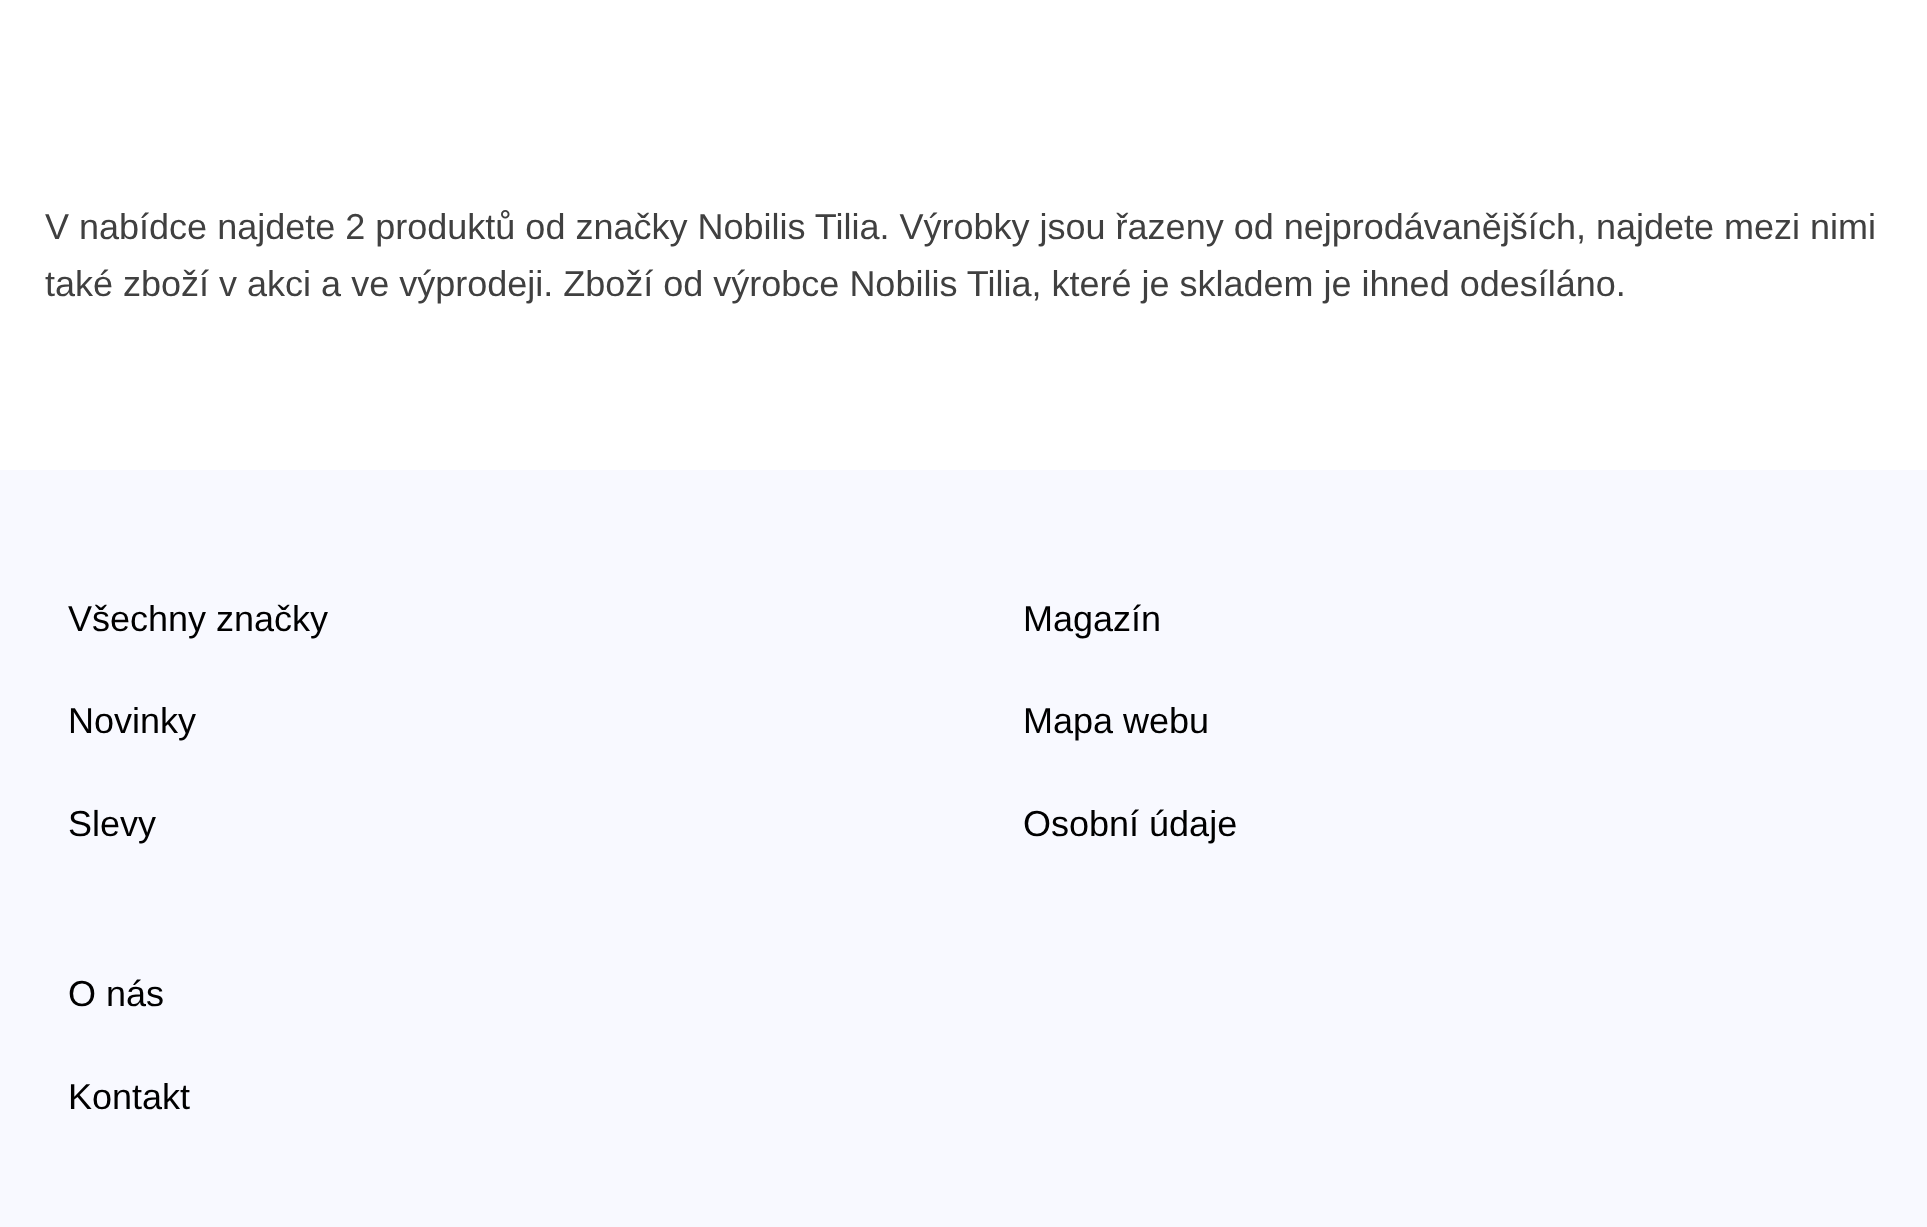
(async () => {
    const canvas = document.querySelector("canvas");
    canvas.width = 1927;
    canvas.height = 1227;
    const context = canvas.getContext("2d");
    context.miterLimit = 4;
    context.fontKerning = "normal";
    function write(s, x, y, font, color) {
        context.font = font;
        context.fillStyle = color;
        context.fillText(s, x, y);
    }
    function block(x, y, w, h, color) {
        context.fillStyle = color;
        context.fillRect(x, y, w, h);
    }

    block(0, 0, 1927, 1227, "rgb(255, 255, 255)");
    write("V nabídce najdete 2 produktů od značky Nobilis Tilia. Výrobky jsou řazeny od nejprodávanějších, najdete mezi nimi", 45, 239, "36px Liberation Sans", "rgb(64, 64, 64)");
    write("také zboží v akci a ve výprodeji. Zboží od výrobce Nobilis Tilia, které je skladem je ihned odesíláno.", 45, 296, "36px Liberation Sans", "rgb(64, 64, 64)");
    block(0, 470, 1927, 757, "rgb(248, 249, 255)");
    write("Všechny značky", 68, 631, "36px Liberation Sans", "rgb(0, 0, 0)");
    write("Novinky", 68, 733, "36px Liberation Sans", "rgb(0, 0, 0)");
    write("Slevy", 68, 836, "36px Liberation Sans", "rgb(0, 0, 0)");
    write("Magazín", 1023, 631, "36px Liberation Sans", "rgb(0, 0, 0)");
    write("Mapa webu", 1023, 733, "36px Liberation Sans", "rgb(0, 0, 0)");
    write("Osobní údaje", 1023, 836, "36px Liberation Sans", "rgb(0, 0, 0)");
    write("O nás", 68, 1006, "36px Liberation Sans", "rgb(0, 0, 0)");
    write("Kontakt", 68, 1109, "36px Liberation Sans", "rgb(0, 0, 0)");
})();
